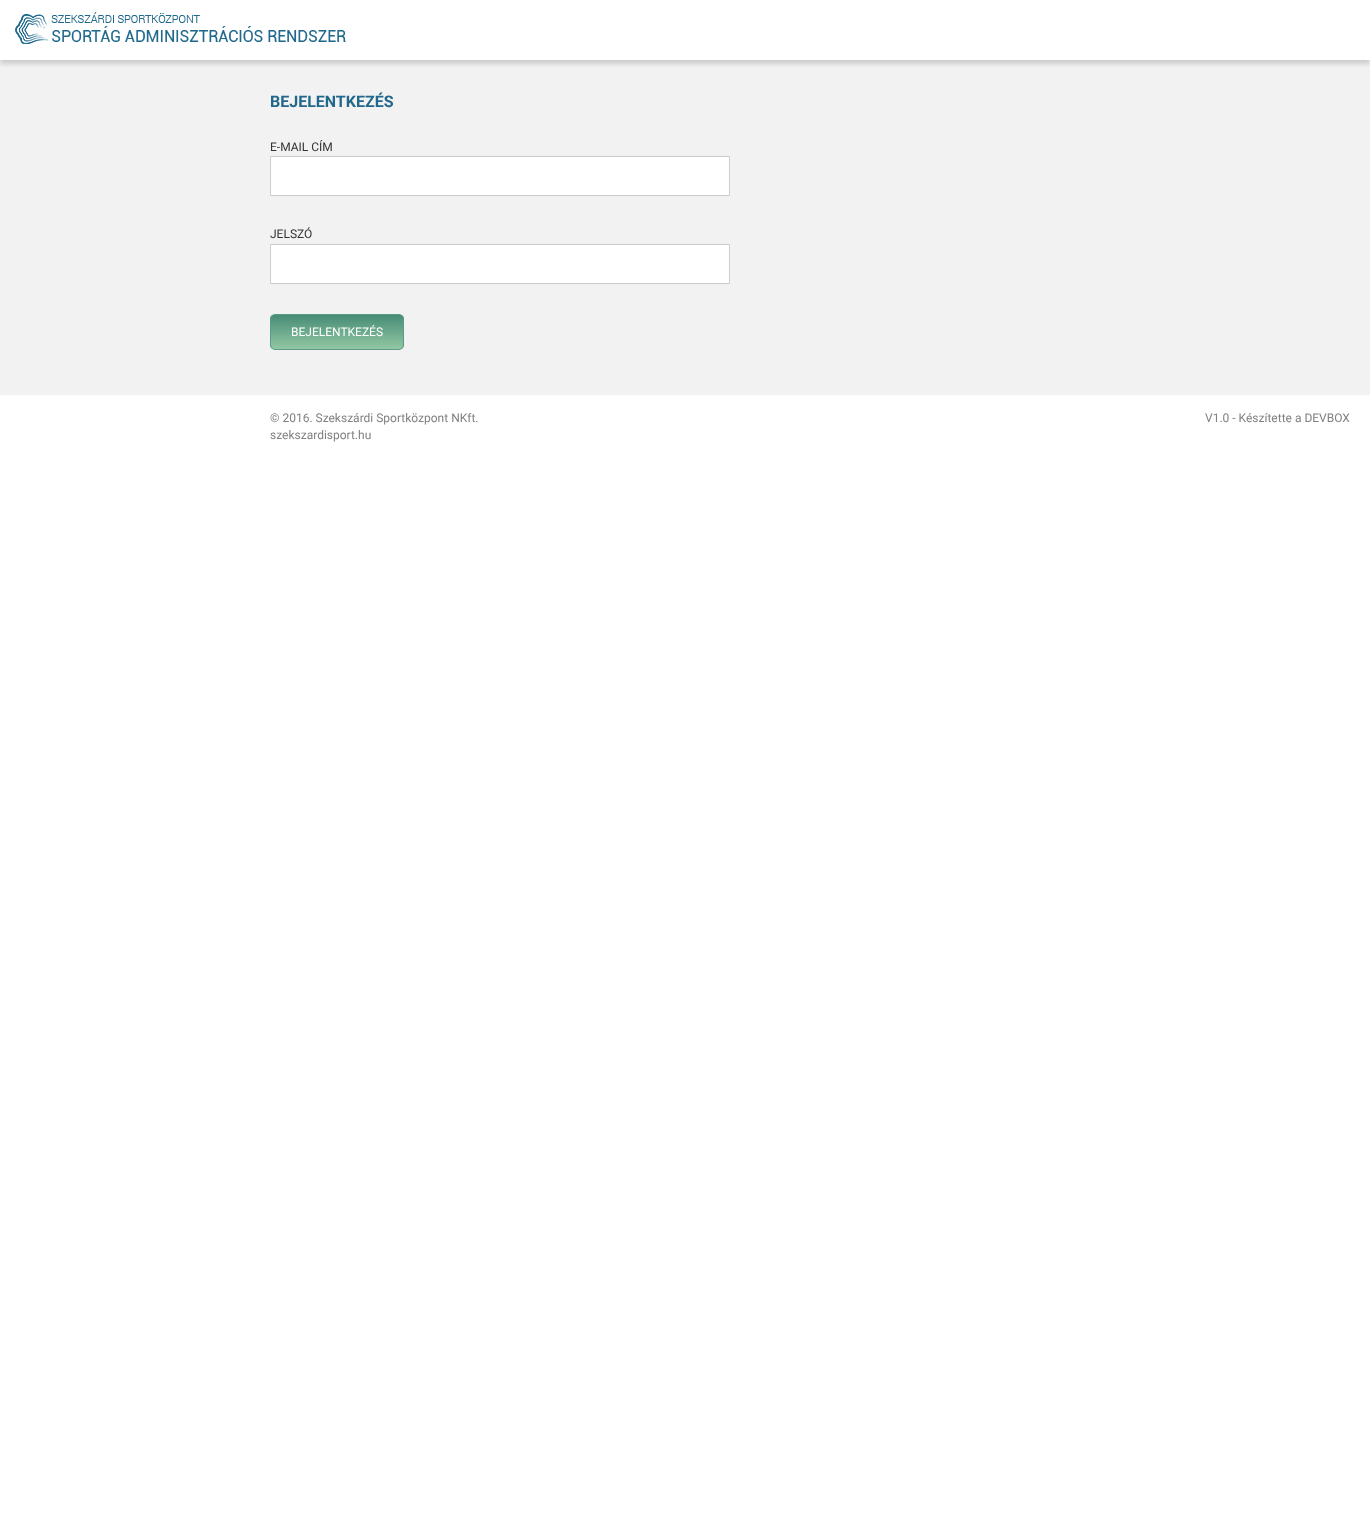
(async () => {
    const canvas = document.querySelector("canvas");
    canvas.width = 1370;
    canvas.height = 1518;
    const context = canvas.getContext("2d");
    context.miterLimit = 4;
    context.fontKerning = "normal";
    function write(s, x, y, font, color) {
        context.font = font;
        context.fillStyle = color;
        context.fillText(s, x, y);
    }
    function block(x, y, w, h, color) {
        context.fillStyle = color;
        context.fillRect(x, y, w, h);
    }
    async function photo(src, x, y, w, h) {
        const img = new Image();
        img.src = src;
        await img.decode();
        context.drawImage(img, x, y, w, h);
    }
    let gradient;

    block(0, 0, 1370, 1518, "rgb(255, 255, 255)");
    block(0, 60, 1370, 335, "rgb(242, 242, 242)");
    context.fillStyle = "rgba(0, 0, 0, 0.15)";
    context.filter = "blur(2px)";
    context.beginPath();
    context.rect(0, 4, 1370, 60);
    context.fill();
    context.filter = "none";
    block(0, 1, 1370, 59, "rgb(255, 255, 255)");
    await photo("media/1.png", 15, 12, 331, 32);
    write("BEJELENTKEZÉS", 270, 107, "bold 16px Roboto", "rgb(34, 104, 140)");
    write("E-MAIL CÍM", 270, 151, "12px Roboto", "rgb(51, 51, 51)");
    context.fillStyle = "rgb(255, 255, 255)";
    context.beginPath();
    context.rect(270.5, 156.5, 459, 39);
    context.fill();
    context.strokeStyle = "rgb(204, 204, 204)";
    context.stroke();
    write("JELSZÓ", 270, 238, "12px Roboto", "rgb(51, 51, 51)");
    context.fillStyle = "rgb(255, 255, 255)";
    context.beginPath();
    context.rect(270.5, 244.5, 459, 39);
    context.fill();
    context.stroke();
    context.save();
    context.beginPath();
    context.roundRect(270, 314, 134, 36, 5);
    context.clip();
    gradient = context.createLinearGradient(337, 315, 337, 349);
    gradient.addColorStop(0, "rgb(71, 140, 118)");
    gradient.addColorStop(1, "rgb(146, 200, 163)");
    context.fillStyle = gradient;
    context.fillRect(270, 315, 134, 34);
    context.restore();
    context.beginPath();
    context.roundRect(270.5, 314.5, 133, 35, 4.5);
    context.strokeStyle = "rgb(89, 155, 137)";
    context.stroke();
    write("BEJELENTKEZÉS", 291, 336, "12px Roboto", "rgb(255, 255, 255)");
    write("© 2016. Szekszárdi Sportközpont NKft.", 270, 422, "12px Roboto", "rgb(128, 128, 128)");
    write("szekszardisport.hu", 270, 439, "12px Roboto", "rgb(128, 128, 128)");
    write("V1.0 - Készítette a DEVBOX", 1205, 422, "12px Roboto", "rgb(128, 128, 128)");
})();
